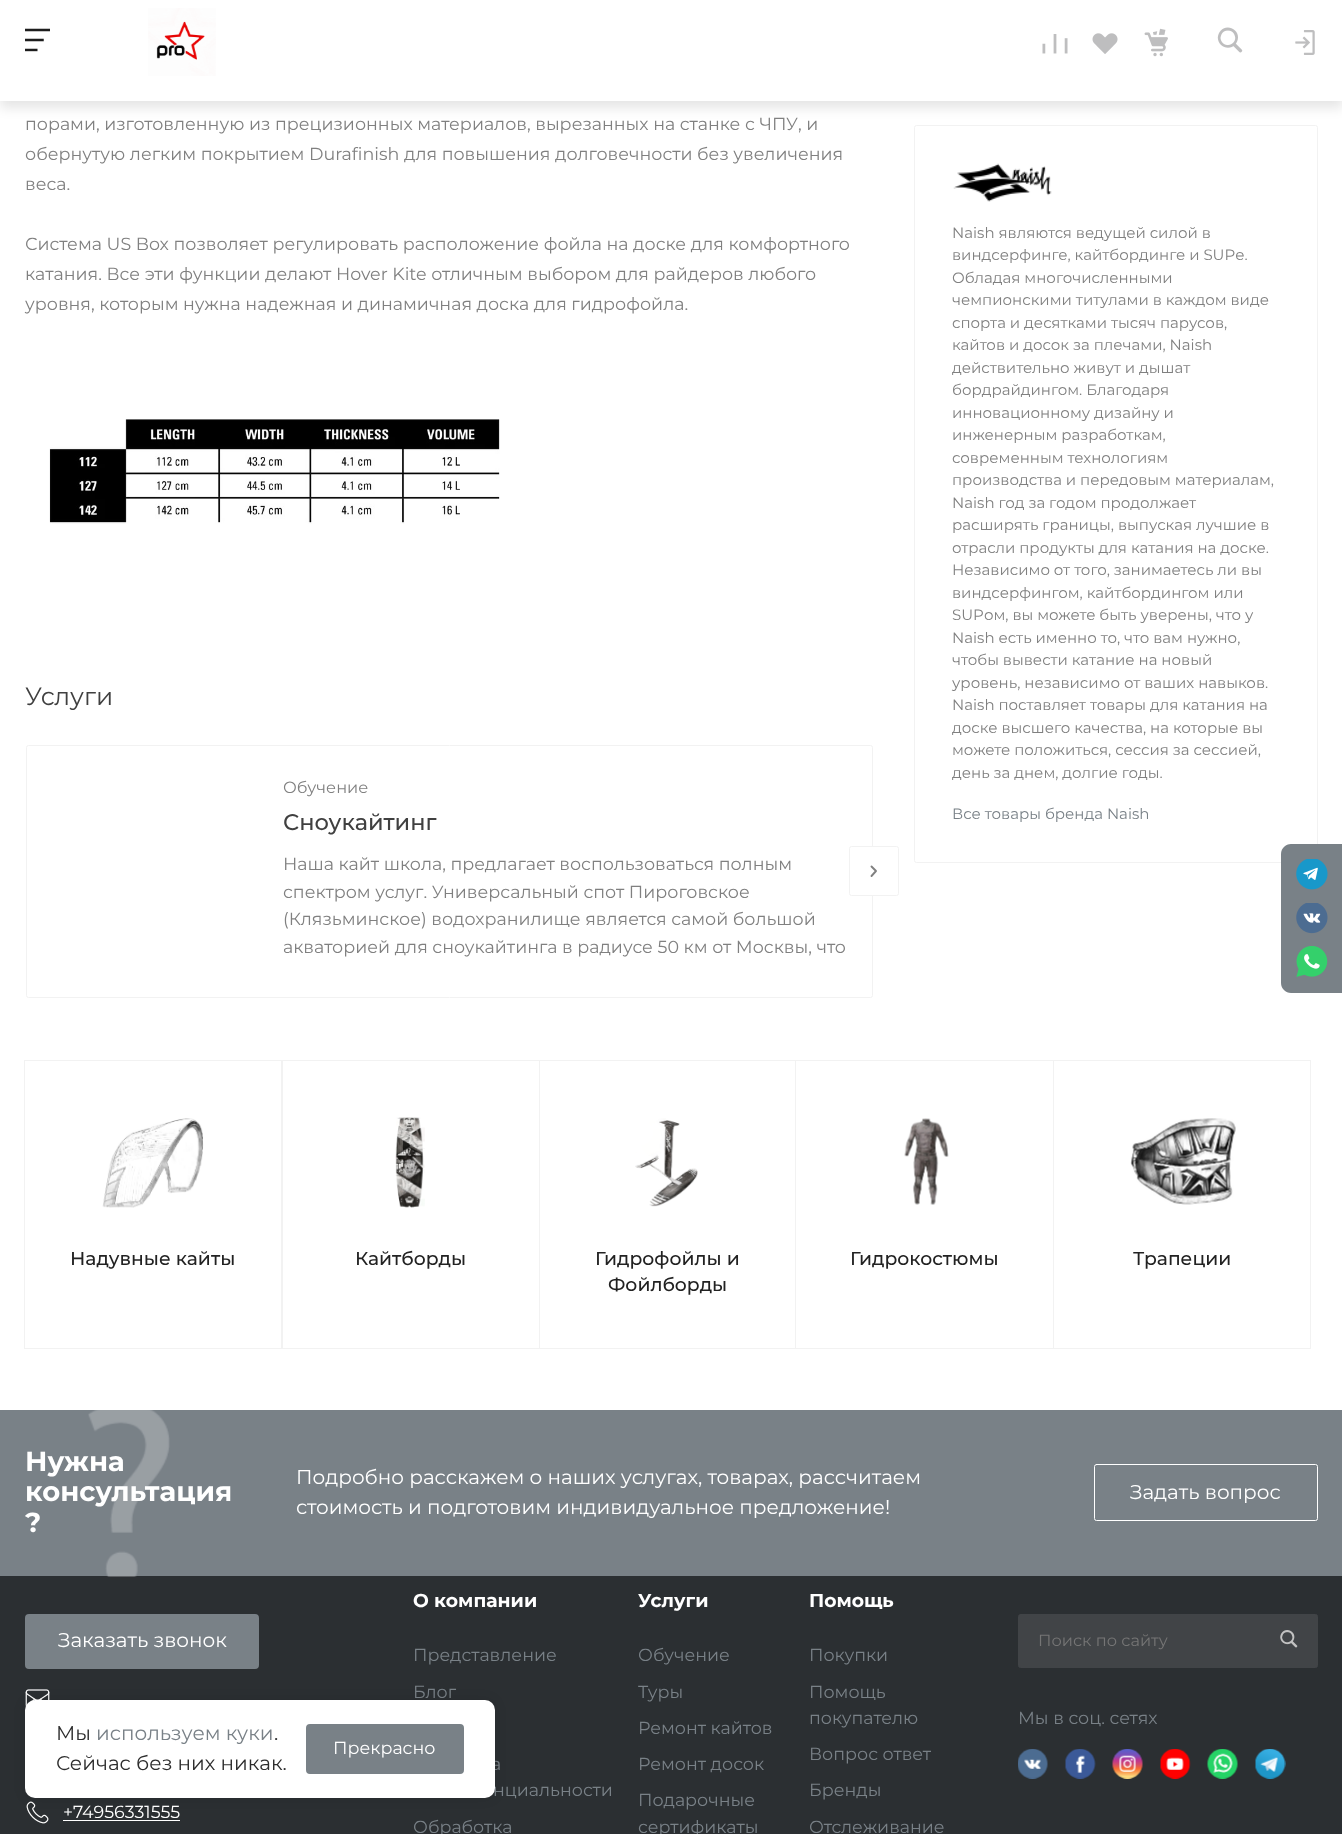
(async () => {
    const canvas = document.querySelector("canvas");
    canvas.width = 1342;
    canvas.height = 1834;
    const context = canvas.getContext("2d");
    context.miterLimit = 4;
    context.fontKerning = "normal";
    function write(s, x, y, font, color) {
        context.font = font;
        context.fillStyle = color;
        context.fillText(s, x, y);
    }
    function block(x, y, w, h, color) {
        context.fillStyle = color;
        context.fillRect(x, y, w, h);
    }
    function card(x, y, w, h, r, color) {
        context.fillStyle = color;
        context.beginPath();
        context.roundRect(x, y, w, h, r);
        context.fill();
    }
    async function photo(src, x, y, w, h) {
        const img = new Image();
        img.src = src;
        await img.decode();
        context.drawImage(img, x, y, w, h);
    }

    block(0, 0, 1342, 1834, "rgb(255, 255, 255)");
    context.beginPath();
    context.roundRect(914.5, 125.5, 403, 737, 2);
    context.strokeStyle = "rgb(242, 242, 242)";
    context.stroke();
    context.fillStyle = "rgba(0, 0, 0, 0.1)";
    context.filter = "blur(6px)";
    context.beginPath();
    context.rect(0, -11, 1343, 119);
    context.fill();
    context.filter = "none";
    block(0, 0, 1342, 101, "rgb(255, 255, 255)");
    await photo("media/1.png", 25, 28, 25, 24);
    await photo("media/2.png", 148, 8, 68, 68);
    await photo("media/3.png", 1042, 34, 26, 20);
    await photo("media/4.png", 1092, 33, 26, 21);
    await photo("media/5.png", 1144, 28, 24, 29);
    await photo("media/6.png", 1217, 27, 26, 26);
    await photo("media/7.png", 1295, 30, 20, 25);
    write("порами, изготовленную из прецизионных материалов, вырезанных на станке с ЧПУ, и", 25, 130, "17.5px Montserrat", "rgb(128, 128, 128)");
    write("обернутую легким покрытием Durafinish для повышения долговечности без увеличения", 25, 160, "17.5px Montserrat", "rgb(128, 128, 128)");
    write("веса.", 25, 190, "17.5px Montserrat", "rgb(128, 128, 128)");
    write("Система US Box позволяет регулировать расположение фойла на доске для комфортного", 25, 250, "17.5px Montserrat", "rgb(128, 128, 128)");
    write("катания. Все эти функции делают Hover Kite отличным выбором для райдеров любого", 25, 280, "17.5px Montserrat", "rgb(128, 128, 128)");
    write("уровня, которым нужна надежная и динамичная доска для гидрофойла.", 25, 310, "17.5px Montserrat", "rgb(128, 128, 128)");
    await photo("media/8.png", 49, 419, 451, 105);
    write("Услуги", 25, 705, "25px Montserrat", "rgb(64, 64, 64)");
    context.beginPath();
    context.roundRect(26.5, 745.5, 846, 252, 2);
    context.stroke();
    write("Обучение", 283, 793, "16.25px Montserrat", "rgb(128, 128, 128)");
    write("Сноукайтинг", 283, 830, "500 22.5px Montserrat", "rgb(64, 64, 64)");
    write("Наша кайт школа, предлагает воспользоваться полным", 283, 870, "17.5px Montserrat", "rgb(128, 128, 128)");
    write("спектром услуг. Универсальный спот Пироговское", 283, 898, "17.5px Montserrat", "rgb(128, 128, 128)");
    write("(Клязьминское) водохранилище является самой большой", 283, 925, "17.5px Montserrat", "rgb(128, 128, 128)");
    write("акваторией для сноукайтинга в радиусе 50 км от Москвы, что", 283, 953, "17.5px Montserrat", "rgb(128, 128, 128)");
    context.fillStyle = "rgb(255, 255, 255)";
    context.beginPath();
    context.roundRect(849.5, 846.5, 49, 49, 2);
    context.fill();
    context.stroke();
    context.beginPath();
    context.moveTo(871.5, 866.5);
    context.lineTo(876, 871);
    context.lineTo(871.5, 876);
    context.strokeStyle = "rgb(128, 128, 128)";
    context.lineWidth = 1.9;
    context.lineCap = "round";
    context.lineJoin = "round";
    context.stroke();
    await photo("media/9.png", 953, 163, 99, 39);
    write("Naish являются ведущей силой в", 952, 238, "15px Montserrat", "rgb(128, 128, 128)");
    write("виндсерфинге, кайтбординге и SUPе.", 952, 260, "15px Montserrat", "rgb(128, 128, 128)");
    write("Обладая многочисленными", 952, 283, "15px Montserrat", "rgb(128, 128, 128)");
    write("чемпионскими титулами в каждом виде", 952, 305, "15px Montserrat", "rgb(128, 128, 128)");
    write("спорта и десятками тысяч парусов,", 952, 328, "15px Montserrat", "rgb(128, 128, 128)");
    write("кайтов и досок за плечами, Naish", 952, 350, "15px Montserrat", "rgb(128, 128, 128)");
    write("действительно живут и дышат", 952, 373, "15px Montserrat", "rgb(128, 128, 128)");
    write("бордрайдингом. Благодаря", 952, 395, "15px Montserrat", "rgb(128, 128, 128)");
    write("инновационному дизайну и", 952, 418, "15px Montserrat", "rgb(128, 128, 128)");
    write("инженерным разработкам,", 952, 440, "15px Montserrat", "rgb(128, 128, 128)");
    write("современным технологиям", 952, 463, "15px Montserrat", "rgb(128, 128, 128)");
    write("производства и передовым материалам,", 952, 485, "15px Montserrat", "rgb(128, 128, 128)");
    write("Naish год за годом продолжает", 952, 508, "15px Montserrat", "rgb(128, 128, 128)");
    write("расширять границы, выпуская лучшие в", 952, 530, "15px Montserrat", "rgb(128, 128, 128)");
    write("отрасли продукты для катания на доске.", 952, 553, "15px Montserrat", "rgb(128, 128, 128)");
    write("Независимо от того, занимаетесь ли вы", 952, 575, "15px Montserrat", "rgb(128, 128, 128)");
    write("виндсерфингом, кайтбордингом или", 952, 598, "15px Montserrat", "rgb(128, 128, 128)");
    write("SUPом, вы можете быть уверены, что у", 952, 620, "15px Montserrat", "rgb(128, 128, 128)");
    write("Naish есть именно то, что вам нужно,", 952, 643, "15px Montserrat", "rgb(128, 128, 128)");
    write("чтобы вывести катание на новый", 952, 665, "15px Montserrat", "rgb(128, 128, 128)");
    write("уровень, независимо от ваших навыков.", 952, 688, "15px Montserrat", "rgb(128, 128, 128)");
    write("Naish поставляет товары для катания на", 952, 710, "15px Montserrat", "rgb(128, 128, 128)");
    write("доске высшего качества, на которые вы", 952, 733, "15px Montserrat", "rgb(128, 128, 128)");
    write("можете положиться, сессия за сессией,", 952, 755, "15px Montserrat", "rgb(128, 128, 128)");
    write("день за днем, долгие годы.", 952, 778, "15px Montserrat", "rgb(128, 128, 128)");
    write("Все товары бренда Naish", 952, 819, "15px Montserrat", "rgb(121, 129, 135)");
    context.strokeStyle = "rgb(242, 242, 242)";
    context.lineWidth = 1;
    context.lineJoin = "miter";
    context.strokeRect(24.5, 1060.5, 258, 288);
    await photo("media/10.png", 102, 1118, 102, 90);
    write("Надувные кайты", 70, 1265, "500 18.75px Montserrat", "rgb(34, 34, 34)");
    context.strokeRect(281.5, 1060.5, 258, 288);
    await photo("media/11.png", 395, 1117, 30, 91);
    write("Кайтборды", 355, 1265, "500 18.75px Montserrat", "rgb(34, 34, 34)");
    context.strokeRect(539.5, 1060.5, 256, 288);
    await photo("media/12.png", 635, 1118, 63, 89);
    write("Гидрофойлы и", 595, 1265, "500 18.75px Montserrat", "rgb(34, 34, 34)");
    write("Фойлборды", 608, 1291, "500 18.75px Montserrat", "rgb(34, 34, 34)");
    context.strokeRect(795.5, 1060.5, 258, 288);
    await photo("media/13.png", 904, 1118, 45, 87);
    write("Гидрокостюмы", 850, 1265, "500 18.75px Montserrat", "rgb(34, 34, 34)");
    context.strokeRect(1053.5, 1060.5, 257, 288);
    await photo("media/14.png", 1130, 1118, 106, 87);
    write("Трапеции", 1133, 1265, "500 18.75px Montserrat", "rgb(34, 34, 34)");
    block(0, 1410, 1342, 166, "rgb(121, 129, 135)");
    write("Нужна", 25, 1471, "bold 27.5px Montserrat", "rgb(255, 255, 255)");
    write("консультация", 25, 1501, "bold 27.5px Montserrat", "rgb(255, 255, 255)");
    block(0, 1576, 1342, 258, "rgb(43, 47, 50)");
    await photo("media/15.png", 88, 1410, 82, 167);
    write("?", 25, 1532, "bold 27.5px Montserrat", "rgb(255, 255, 255)");
    write("Подробно расскажем о наших услугах, товарах, рассчитаем", 296, 1484, "20px Montserrat", "rgb(255, 255, 255)");
    write("стоимость и подготовим индивидуальное предложение!", 296, 1514, "20px Montserrat", "rgb(255, 255, 255)");
    context.beginPath();
    context.roundRect(1094.5, 1464.5, 223, 56, 2);
    context.strokeStyle = "rgb(255, 255, 255)";
    context.stroke();
    write("Задать вопрос", 1130, 1499, "20px Montserrat", "rgb(255, 255, 255)");
    context.fillStyle = "rgb(121, 129, 135)";
    context.beginPath();
    context.roundRect(26.5, 1615.5, 231, 52, 2.5);
    context.fill();
    context.strokeStyle = "rgb(121, 129, 135)";
    context.lineWidth = 3;
    context.stroke();
    write("Заказать звонок", 58, 1647, "20px Montserrat", "rgb(255, 255, 255)");
    await photo("media/16.png", 25, 1689, 25, 18);
    await photo("media/17.png", 26, 1801, 23, 23);
    write("+74956331555", 63, 1818, "17.5px Montserrat", "rgb(255, 255, 255)");
    block(63, 1820, 117, 1, "rgb(255, 255, 255)");
    write("О компании", 413, 1607, "bold 18.75px Montserrat", "rgb(255, 255, 255)");
    write("Представление", 413, 1661, "17.5px Montserrat", "rgb(121, 129, 135)");
    write("Блог", 413, 1698, "17.5px Montserrat", "rgb(121, 129, 135)");
    write("а", 491, 1770, "17.5px Montserrat", "rgb(121, 129, 135)");
    write("нциальности", 493, 1796, "17.5px Montserrat", "rgb(121, 129, 135)");
    write("Обработка", 413, 1833, "17.5px Montserrat", "rgb(121, 129, 135)");
    write("Услуги", 638, 1607, "bold 18.75px Montserrat", "rgb(255, 255, 255)");
    write("Обучение", 638, 1661, "17.5px Montserrat", "rgb(121, 129, 135)");
    write("Туры", 638, 1698, "17.5px Montserrat", "rgb(121, 129, 135)");
    write("Ремонт кайтов", 638, 1734, "17.5px Montserrat", "rgb(121, 129, 135)");
    write("Ремонт досок", 638, 1770, "17.5px Montserrat", "rgb(121, 129, 135)");
    write("Подарочные", 638, 1806, "17.5px Montserrat", "rgb(121, 129, 135)");
    write("сертификаты", 638, 1833, "17.5px Montserrat", "rgb(121, 129, 135)");
    write("Помощь", 809, 1607, "bold 18.75px Montserrat", "rgb(255, 255, 255)");
    write("Покупки", 809, 1661, "17.5px Montserrat", "rgb(121, 129, 135)");
    write("Помощь", 809, 1698, "17.5px Montserrat", "rgb(121, 129, 135)");
    write("покупателю", 809, 1724, "17.5px Montserrat", "rgb(121, 129, 135)");
    write("Вопрос ответ", 809, 1760, "17.5px Montserrat", "rgb(121, 129, 135)");
    write("Бренды", 809, 1796, "17.5px Montserrat", "rgb(121, 129, 135)");
    write("Отслеживание", 809, 1833, "17.5px Montserrat", "rgb(121, 129, 135)");
    context.fillStyle = "rgb(65, 68, 71)";
    context.beginPath();
    context.roundRect(1018.5, 1614.5, 299, 53, 2);
    context.fill();
    context.strokeStyle = "rgb(65, 68, 71)";
    context.lineWidth = 1;
    context.stroke();
    write("Поиск по сайту", 1038, 1646, "16.25px Montserrat", "rgb(117, 117, 117)");
    await photo("media/18.png", 1280, 1630, 18, 18);
    write("Мы в соц. сетях", 1018, 1724, "17.5px Montserrat", "rgb(121, 129, 135)");
    await photo("media/19.png", 1018, 1749, 30, 30);
    await photo("media/20.png", 1065, 1749, 31, 30);
    await photo("media/21.png", 1112, 1749, 31, 30);
    await photo("media/22.png", 1160, 1749, 31, 30);
    await photo("media/23.png", 1207, 1749, 31, 30);
    await photo("media/24.png", 1255, 1749, 31, 30);
    context.beginPath();
    context.moveTo(1291, 844);
    context.lineTo(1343, 844);
    context.lineTo(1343, 993);
    context.lineTo(1291, 993);
    context.bezierCurveTo(1285.5, 993, 1281, 988.5, 1281, 983);
    context.lineTo(1281, 854);
    context.bezierCurveTo(1281, 848.5, 1285.5, 844, 1291, 844);
    context.closePath();
    context.fill();
    await photo("media/25.png", 1296, 859, 32, 31);
    await photo("media/26.png", 1296, 903, 32, 31);
    await photo("media/27.png", 1296, 946, 32, 31);
    context.fillStyle = "rgba(0, 0, 0, 0.1)";
    context.filter = "blur(6px)";
    context.beginPath();
    context.roundRect(25, 1700, 470, 98, 10);
    context.fill();
    context.filter = "none";
    card(25, 1700, 470, 98, 10, "rgb(255, 255, 255)");
    write("Мы", 56, 1740, "20px Montserrat", "rgb(45, 45, 45)");
    write("используем куки", 96, 1740, "20px Montserrat", "rgb(121, 129, 135)");
    write(".", 274, 1740, "20px Montserrat", "rgb(45, 45, 45)");
    write("Сейчас без них никак.", 56, 1770, "20px Montserrat", "rgb(45, 45, 45)");
    context.fillStyle = "rgb(121, 129, 135)";
    context.beginPath();
    context.roundRect(307.5, 1725.5, 155, 47, 2.5);
    context.fill();
    context.strokeStyle = "rgb(121, 129, 135)";
    context.lineWidth = 3;
    context.stroke();
    write("Прекрасно", 333, 1754, "17.5px Montserrat", "rgb(255, 255, 255)");
})();
